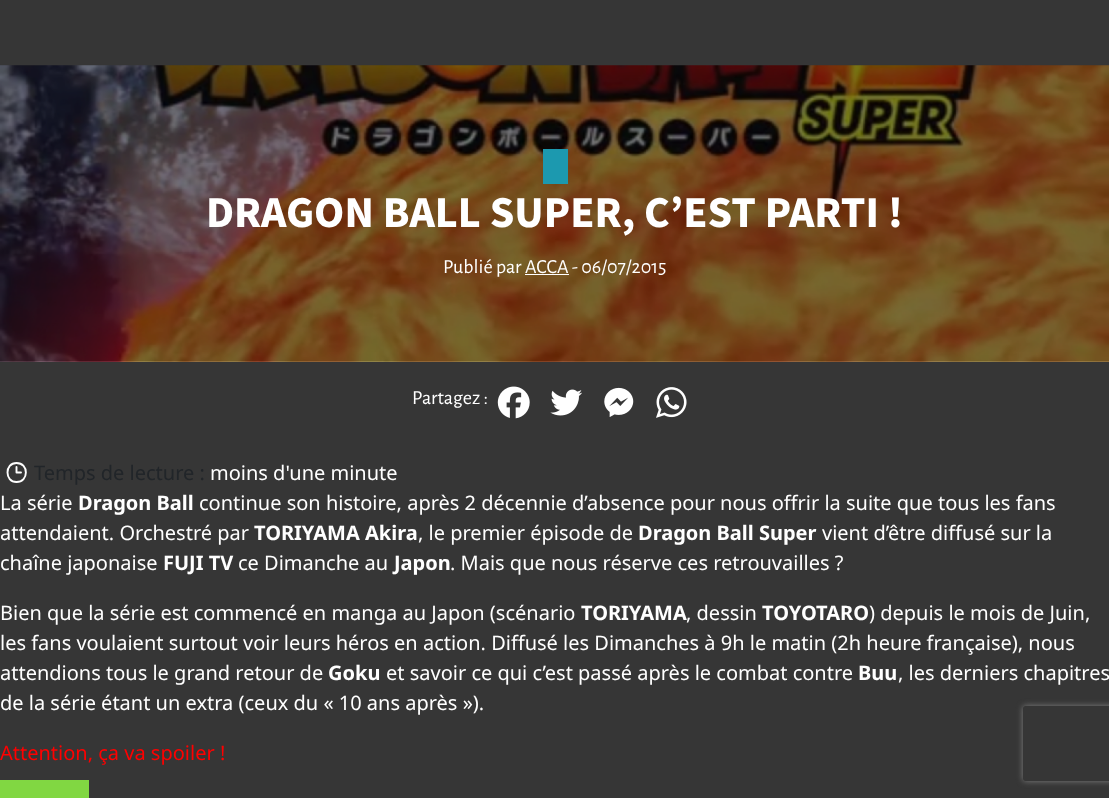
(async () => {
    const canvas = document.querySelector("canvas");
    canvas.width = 1109;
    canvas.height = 798;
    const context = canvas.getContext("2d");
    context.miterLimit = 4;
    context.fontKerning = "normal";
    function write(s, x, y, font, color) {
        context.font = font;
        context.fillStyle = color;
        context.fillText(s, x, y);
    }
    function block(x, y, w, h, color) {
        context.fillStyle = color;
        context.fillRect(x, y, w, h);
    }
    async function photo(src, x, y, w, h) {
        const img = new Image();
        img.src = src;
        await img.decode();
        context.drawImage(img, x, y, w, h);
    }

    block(0, 0, 1109, 798, "rgb(54, 54, 54)");
    await photo("media/1.png", 0, 65, 1109, 297);
    block(543, 149, 25, 35, "rgb(28, 153, 175)");
    write("DRAGON BALL SUPER, C’EST PARTI !", 206, 227, "bold 44.1px Source Sans Pro", "rgb(255, 255, 255)");
    write("Publié par ACCA - 06/07/2015", 443, 273, "20px Alegreya Sans", "rgb(255, 255, 255)");
    block(525, 274, 44, 1, "rgb(255, 255, 255)");
    write("Partagez :", 412, 404, "20px Alegreya Sans", "rgb(255, 255, 255)");
    await photo("media/2.png", 497, 386, 33, 33);
    await photo("media/3.png", 550, 389, 32, 27);
    await photo("media/4.png", 604, 387, 30, 30);
    await photo("media/5.png", 656, 387, 31, 31);
    context.beginPath();
    context.moveTo(16.5, 482);
    context.bezierCurveTo(29, 482, 29, 463, 16.5, 463);
    context.bezierCurveTo(4.5, 463, 4.5, 482, 16.5, 482);
    context.closePath();
    context.moveTo(16.5, 467);
    context.lineTo(16.5, 472.5);
    context.lineTo(21, 472.5);
    context.strokeStyle = "rgb(255, 255, 255)";
    context.lineWidth = 1.9;
    context.lineCap = "round";
    context.lineJoin = "round";
    context.stroke();
    write("Temps de lecture :", 34, 480, "20px Noto Sans", "rgb(33, 37, 41)");
    write("moins d'une minute", 210, 480, "20px Noto Sans", "rgb(255, 255, 255)");
    write("La série", 0, 510, "20px Noto Sans", "rgb(255, 255, 255)");
    write("Dragon Ball", 78, 510, "bold 20px Noto Sans", "rgb(255, 255, 255)");
    write("continue son histoire, après 2 décennie d’absence pour nous offrir la suite que tous les fans", 199, 510, "20px Noto Sans", "rgb(255, 255, 255)");
    write("attendaient. Orchestré par", 0, 540, "20px Noto Sans", "rgb(255, 255, 255)");
    write("TORIYAMA Akira", 254, 540, "bold 20px Noto Sans", "rgb(255, 255, 255)");
    write(", le premier épisode de", 418, 540, "20px Noto Sans", "rgb(255, 255, 255)");
    write("Dragon Ball Super", 638, 540, "bold 20px Noto Sans", "rgb(255, 255, 255)");
    write("vient d’être diffusé sur la", 822, 540, "20px Noto Sans", "rgb(255, 255, 255)");
    write("chaîne japonaise", 0, 570, "20px Noto Sans", "rgb(255, 255, 255)");
    write("FUJI TV", 163, 570, "bold 20px Noto Sans", "rgb(255, 255, 255)");
    write("ce Dimanche au", 238, 570, "20px Noto Sans", "rgb(255, 255, 255)");
    write("Japon", 394, 570, "bold 20px Noto Sans", "rgb(255, 255, 255)");
    write(". Mais que nous réserve ces retrouvailles ?", 450, 570, "20px Noto Sans", "rgb(255, 255, 255)");
    write("Bien que la série est commencé en manga au Japon (scénario", 0, 620, "20px Noto Sans", "rgb(255, 255, 255)");
    write("TORIYAMA", 581, 620, "bold 20px Noto Sans", "rgb(255, 255, 255)");
    write(", dessin", 686, 620, "20px Noto Sans", "rgb(255, 255, 255)");
    write("TOYOTARO", 762, 620, "bold 20px Noto Sans", "rgb(255, 255, 255)");
    write(") depuis le mois de Juin,", 869, 620, "20px Noto Sans", "rgb(255, 255, 255)");
    write("les fans voulaient surtout voir leurs héros en action. Diffusé les Dimanches à 9h le matin (2h heure française), nous", 0, 650, "20px Noto Sans", "rgb(255, 255, 255)");
    write("attendions tous le grand retour de", 0, 680, "20px Noto Sans", "rgb(255, 255, 255)");
    write("Goku", 328, 680, "bold 20px Noto Sans", "rgb(255, 255, 255)");
    write("et savoir ce qui c’est passé après le combat contre", 386, 680, "20px Noto Sans", "rgb(255, 255, 255)");
    write("Buu", 858, 680, "bold 20px Noto Sans", "rgb(255, 255, 255)");
    write(", les derniers chapitres", 898, 680, "20px Noto Sans", "rgb(255, 255, 255)");
    write("de la série étant un extra (ceux du « 10 ans après »).", 0, 710, "20px Noto Sans", "rgb(255, 255, 255)");
    write("Attention, ça va spoiler !", 0, 760, "20px Noto Sans", "rgb(255, 0, 0)");
    context.save();
    context.beginPath();
    context.moveTo(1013, 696);
    context.lineTo(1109, 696);
    context.lineTo(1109, 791);
    context.lineTo(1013, 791);
    context.closePath();
    context.moveTo(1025.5, 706);
    context.lineTo(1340.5, 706);
    context.bezierCurveTo(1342, 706, 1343, 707, 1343, 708.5);
    context.lineTo(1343, 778.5);
    context.bezierCurveTo(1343, 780, 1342, 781, 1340.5, 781);
    context.lineTo(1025.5, 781);
    context.bezierCurveTo(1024, 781, 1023, 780, 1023, 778.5);
    context.lineTo(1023, 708.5);
    context.bezierCurveTo(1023, 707, 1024, 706, 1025.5, 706);
    context.closePath();
    context.clip("evenodd");
    context.fillStyle = "rgb(128, 128, 128)";
    context.filter = "blur(3px)";
    context.beginPath();
    context.roundRect(1023, 706, 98, 75, 2.5);
    context.fill();
    context.filter = "none";
    context.restore();
    block(0, 780, 89, 18, "rgb(129, 215, 66)");
})();
